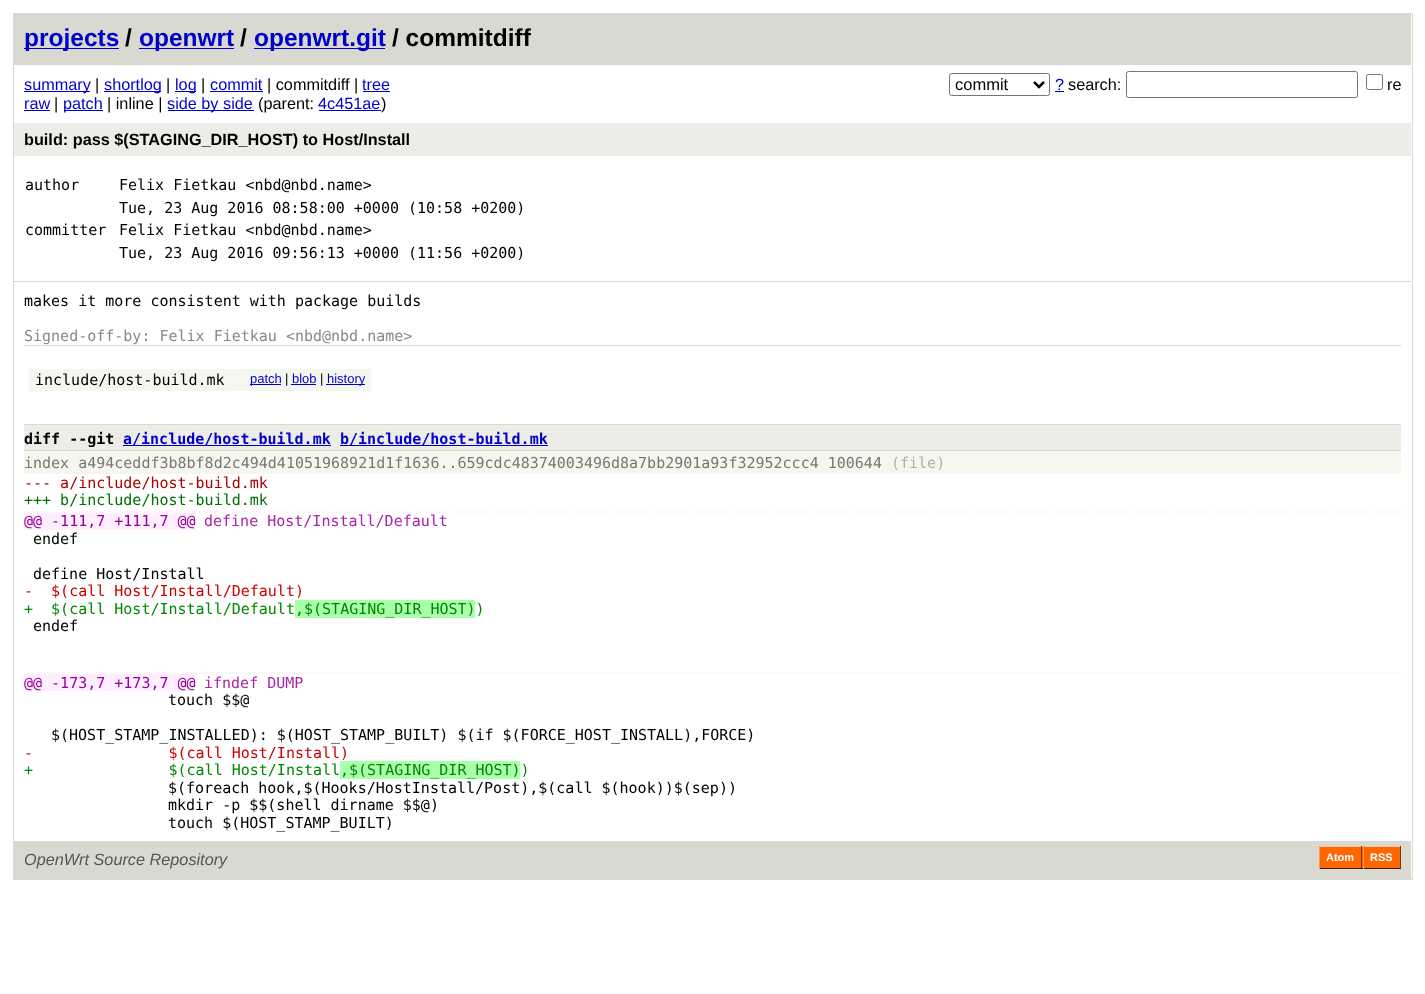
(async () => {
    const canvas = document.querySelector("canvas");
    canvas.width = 1425;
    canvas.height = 994;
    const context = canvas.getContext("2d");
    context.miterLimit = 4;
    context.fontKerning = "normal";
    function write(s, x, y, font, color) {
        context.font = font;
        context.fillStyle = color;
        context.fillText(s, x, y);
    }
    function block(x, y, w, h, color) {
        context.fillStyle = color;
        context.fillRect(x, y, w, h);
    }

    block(0, 0, 1425, 994, "rgb(255, 255, 255)");
    context.strokeStyle = "rgb(217, 216, 209)";
    context.strokeRect(13.5, 13.5, 1399, 866);
    block(14, 14, 1397, 51, "rgb(217, 216, 209)");
    block(24, 48, 95, 1, "rgb(0, 0, 204)");
    write("projects", 24, 46, "bold 24.5px Liberation Sans", "rgb(0, 0, 204)");
    write("/", 125, 46, "bold 24.5px Liberation Sans", "rgb(0, 0, 0)");
    block(139, 48, 95, 1, "rgb(0, 0, 204)");
    write("openwrt", 139, 46, "bold 24.5px Liberation Sans", "rgb(0, 0, 204)");
    write("/", 240, 46, "bold 24.5px Liberation Sans", "rgb(0, 0, 0)");
    block(254, 48, 131, 1, "rgb(0, 0, 204)");
    write("openwrt.git", 254, 46, "bold 24.5px Liberation Sans", "rgb(0, 0, 204)");
    write("/ commitdiff", 392, 46, "bold 24.5px Liberation Sans", "rgb(0, 0, 0)");
    block(24, 91, 66, 1, "rgb(0, 0, 204)");
    write("summary", 24, 90, "16.25px Liberation Sans", "rgb(0, 0, 204)");
    write("|", 95, 90, "16.25px Liberation Sans", "rgb(0, 0, 0)");
    block(104, 91, 57, 1, "rgb(0, 0, 204)");
    write("shortlog", 104, 90, "16.25px Liberation Sans", "rgb(0, 0, 204)");
    write("|", 166, 90, "16.25px Liberation Sans", "rgb(0, 0, 0)");
    block(175, 91, 21, 1, "rgb(0, 0, 204)");
    write("log", 175, 90, "16.25px Liberation Sans", "rgb(0, 0, 204)");
    write("|", 201, 90, "16.25px Liberation Sans", "rgb(0, 0, 0)");
    write("commit", 210, 90, "16.25px Liberation Sans", "rgb(0, 0, 204)");
    block(210, 91, 53, 1, "rgb(0, 0, 204)");
    write("| commitdiff |", 267, 90, "16.25px Liberation Sans", "rgb(0, 0, 0)");
    write("tree", 362, 90, "16.25px Liberation Sans", "rgb(0, 0, 204)");
    block(363, 91, 27, 1, "rgb(0, 0, 204)");
    write("raw", 24, 109, "16.25px Liberation Sans", "rgb(0, 0, 204)");
    block(24, 110, 26, 1, "rgb(0, 0, 204)");
    write("|", 54, 109, "16.25px Liberation Sans", "rgb(0, 0, 0)");
    block(64, 110, 39, 1, "rgb(0, 0, 204)");
    write("patch", 63, 109, "16.25px Liberation Sans", "rgb(0, 0, 204)");
    write("| inline |", 107, 109, "16.25px Liberation Sans", "rgb(0, 0, 0)");
    block(168, 110, 86, 1, "rgb(0, 0, 204)");
    write("side by side", 167, 109, "16.25px Liberation Sans", "rgb(0, 0, 204)");
    write("(parent:", 258, 109, "16.25px Liberation Sans", "rgb(0, 0, 0)");
    write("4c451ae", 318, 109, "16.25px Liberation Sans", "rgb(0, 0, 204)");
    block(319, 110, 62, 1, "rgb(0, 0, 204)");
    write(")", 381, 109, "16.25px Liberation Sans", "rgb(0, 0, 0)");
    context.beginPath();
    context.roundRect(949.5, 73.5, 100, 22, 2);
    context.strokeStyle = "rgb(118, 118, 118)";
    context.stroke();
    context.beginPath();
    context.moveTo(1034, 82);
    context.lineTo(1039, 87);
    context.lineTo(1044, 82);
    context.strokeStyle = "rgb(0, 0, 0)";
    context.lineWidth = 2.5;
    context.stroke();
    write("commit", 955, 90, "16.5px Liberation Sans", "rgb(0, 0, 0)");
    write("?", 1055, 90, "16.25px Liberation Sans", "rgb(0, 0, 204)");
    block(1055, 91, 9, 1, "rgb(0, 0, 204)");
    write("search:", 1068, 90, "16.25px Liberation Sans", "rgb(0, 0, 0)");
    context.beginPath();
    context.roundRect(1126.5, 71.5, 231, 26, 2);
    context.strokeStyle = "rgb(118, 118, 118)";
    context.lineWidth = 1;
    context.stroke();
    context.beginPath();
    context.roundRect(1366.5, 74.5, 16, 15, 2);
    context.stroke();
    write("re", 1387, 90, "16.25px Liberation Sans", "rgb(0, 0, 0)");
    block(14, 123, 1397, 33, "rgb(237, 236, 230)");
    write("build: pass $(STAGING_DIR_HOST) to Host/Install", 24, 145, "bold 16.25px Liberation Sans", "rgb(0, 0, 0)");
    block(14, 281, 1397, 1, "rgb(217, 216, 209)");
    write("author", 25, 190, "15px DejaVu Sans Mono", "rgb(0, 0, 0)");
    write("Felix Fietkau <nbd@nbd.name>", 119, 190, "15px DejaVu Sans Mono", "rgb(0, 0, 0)");
    write("Tue, 23 Aug 2016 08:58:00 +0000 (10:58 +0200)", 119, 213, "15px DejaVu Sans Mono", "rgb(0, 0, 0)");
    write("committer", 25, 235, "15px DejaVu Sans Mono", "rgb(0, 0, 0)");
    write("Felix Fietkau <nbd@nbd.name>", 119, 235, "15px DejaVu Sans Mono", "rgb(0, 0, 0)");
    write("Tue, 23 Aug 2016 09:56:13 +0000 (11:56 +0200)", 119, 258, "15px DejaVu Sans Mono", "rgb(0, 0, 0)");
    write("makes it more consistent with package builds", 24, 306, "15px DejaVu Sans Mono", "rgb(0, 0, 0)");
    write("Signed-off-by: Felix Fietkau <nbd@nbd.name>", 24, 341, "15px DejaVu Sans Mono", "rgb(136, 136, 136)");
    block(24, 345, 1377, 1, "rgb(217, 216, 209)");
    block(29, 369, 342, 22, "rgb(246, 246, 240)");
    write("include/host-build.mk", 35, 385, "15px DejaVu Sans Mono", "rgb(0, 0, 0)");
    block(250, 384, 31, 1, "rgb(0, 0, 204)");
    write("patch", 250, 383, "13px Liberation Sans", "rgb(0, 0, 204)");
    write("|", 285, 383, "13px Liberation Sans", "rgb(0, 0, 0)");
    write("blob", 292, 383, "13px Liberation Sans", "rgb(0, 0, 204)");
    block(291, 384, 25, 1, "rgb(0, 0, 204)");
    write("|", 320, 383, "13px Liberation Sans", "rgb(0, 0, 0)");
    block(326, 384, 39, 1, "rgb(0, 0, 204)");
    write("history", 327, 383, "13px Liberation Sans", "rgb(0, 0, 204)");
    block(24, 425, 1377, 25, "rgb(237, 236, 230)");
    block(24, 424, 1377, 1, "rgb(217, 216, 209)");
    block(24, 450, 1377, 1, "rgb(217, 216, 209)");
    write("diff --git", 24, 444, "bold 15px DejaVu Sans Mono", "rgb(0, 0, 0)");
    block(123, 445, 208, 1, "rgb(0, 0, 204)");
    write("a/include/host-build.mk", 123, 444, "bold 15px DejaVu Sans Mono", "rgb(0, 0, 204)");
    block(340, 445, 208, 1, "rgb(0, 0, 204)");
    write("b/include/host-build.mk", 340, 444, "bold 15px DejaVu Sans Mono", "rgb(0, 0, 204)");
    block(24, 451, 1377, 23, "rgb(246, 245, 238)");
    write("index a494ceddf3b8bf8d2c494d41051968921d1f1636..659cdc48374003496d8a7bb2901a93f32952ccc4 100644", 24, 468, "15px DejaVu Sans Mono", "rgb(119, 119, 119)");
    write("(file)", 891, 468, "15px DejaVu Sans Mono", "rgb(176, 176, 176)");
    write("--- a/include/host-build.mk", 24, 488, "15px DejaVu Sans Mono", "rgb(170, 0, 0)");
    write("+++ b/include/host-build.mk", 24, 505, "15px DejaVu Sans Mono", "rgb(0, 112, 0)");
    context.beginPath();
    context.moveTo(24, 512);
    context.lineTo(1401, 512);
    context.strokeStyle = "rgb(255, 224, 255)";
    context.lineWidth = 1.2;
    context.setLineDash([1.25, 1.25]);
    context.stroke();
    block(24, 513, 171, 17, "rgb(255, 238, 255)");
    write("@@ -111,7 +111,7 @@", 24, 526, "15px DejaVu Sans Mono", "rgb(153, 0, 153)");
    write("define Host/Install/Default", 204, 526, "15px DejaVu Sans Mono", "rgb(170, 34, 170)");
    write("endef", 33, 544, "15px DejaVu Sans Mono", "rgb(0, 0, 0)");
    write("define Host/Install", 33, 579, "15px DejaVu Sans Mono", "rgb(0, 0, 0)");
    write("-  $(call Host/Install/Default)", 24, 596, "15px DejaVu Sans Mono", "rgb(204, 0, 0)");
    write("+  $(call Host/Install/Default", 24, 614, "15px DejaVu Sans Mono", "rgb(0, 136, 0)");
    block(295, 600, 180, 18, "rgb(170, 255, 170)");
    write(",$(STAGING_DIR_HOST))", 295, 614, "15px DejaVu Sans Mono", "rgb(0, 136, 0)");
    write("endef", 33, 631, "15px DejaVu Sans Mono", "rgb(0, 0, 0)");
    context.beginPath();
    context.moveTo(24, 673);
    context.lineTo(1401, 673);
    context.stroke();
    block(24, 674, 171, 17, "rgb(255, 238, 255)");
    write("@@ -173,7 +173,7 @@", 24, 688, "15px DejaVu Sans Mono", "rgb(153, 0, 153)");
    write("ifndef DUMP", 204, 688, "15px DejaVu Sans Mono", "rgb(170, 34, 170)");
    write("touch $$@", 168, 705, "15px DejaVu Sans Mono", "rgb(0, 0, 0)");
    write("$(HOST_STAMP_INSTALLED): $(HOST_STAMP_BUILT) $(if $(FORCE_HOST_INSTALL),FORCE)", 51, 740, "15px DejaVu Sans Mono", "rgb(0, 0, 0)");
    write("-               $(call Host/Install)", 24, 758, "15px DejaVu Sans Mono", "rgb(204, 0, 0)");
    write("+               $(call Host/Install", 24, 775, "15px DejaVu Sans Mono", "rgb(0, 136, 0)");
    block(340, 761, 180, 18, "rgb(170, 255, 170)");
    write(",$(STAGING_DIR_HOST))", 340, 775, "15px DejaVu Sans Mono", "rgb(0, 136, 0)");
    write("$(foreach hook,$(Hooks/HostInstall/Post),$(call $(hook))$(sep))", 168, 793, "15px DejaVu Sans Mono", "rgb(0, 0, 0)");
    write("mkdir -p $$(shell dirname $$@)", 168, 810, "15px DejaVu Sans Mono", "rgb(0, 0, 0)");
    write("touch $(HOST_STAMP_BUILT)", 168, 828, "15px DejaVu Sans Mono", "rgb(0, 0, 0)");
    block(14, 841, 1397, 38, "rgb(217, 216, 209)");
    write("OpenWrt Source Repository", 24, 865, "italic 16.25px Liberation Sans", "rgb(85, 85, 85)");
    block(1320, 847, 43, 21, "rgb(255, 102, 0)");
    block(1319, 846, 82, 1, "rgb(252, 199, 165)");
    block(1361, 846, 1, 23, "rgb(125, 51, 2)");
    block(1319, 868, 44, 1, "rgb(62, 26, 1)");
    block(1319, 846, 1, 23, "rgb(255, 149, 78)");
    write("Atom", 1326, 861, "bold 11px Liberation Sans", "rgb(255, 255, 255)");
    block(1364, 847, 36, 21, "rgb(255, 102, 0)");
    block(1400, 846, 1, 23, "rgb(125, 51, 2)");
    block(1363, 868, 38, 1, "rgb(62, 26, 1)");
    block(1363, 846, 1, 23, "rgb(255, 149, 78)");
    write("RSS", 1370, 861, "bold 11px Liberation Sans", "rgb(255, 255, 255)");
})();
